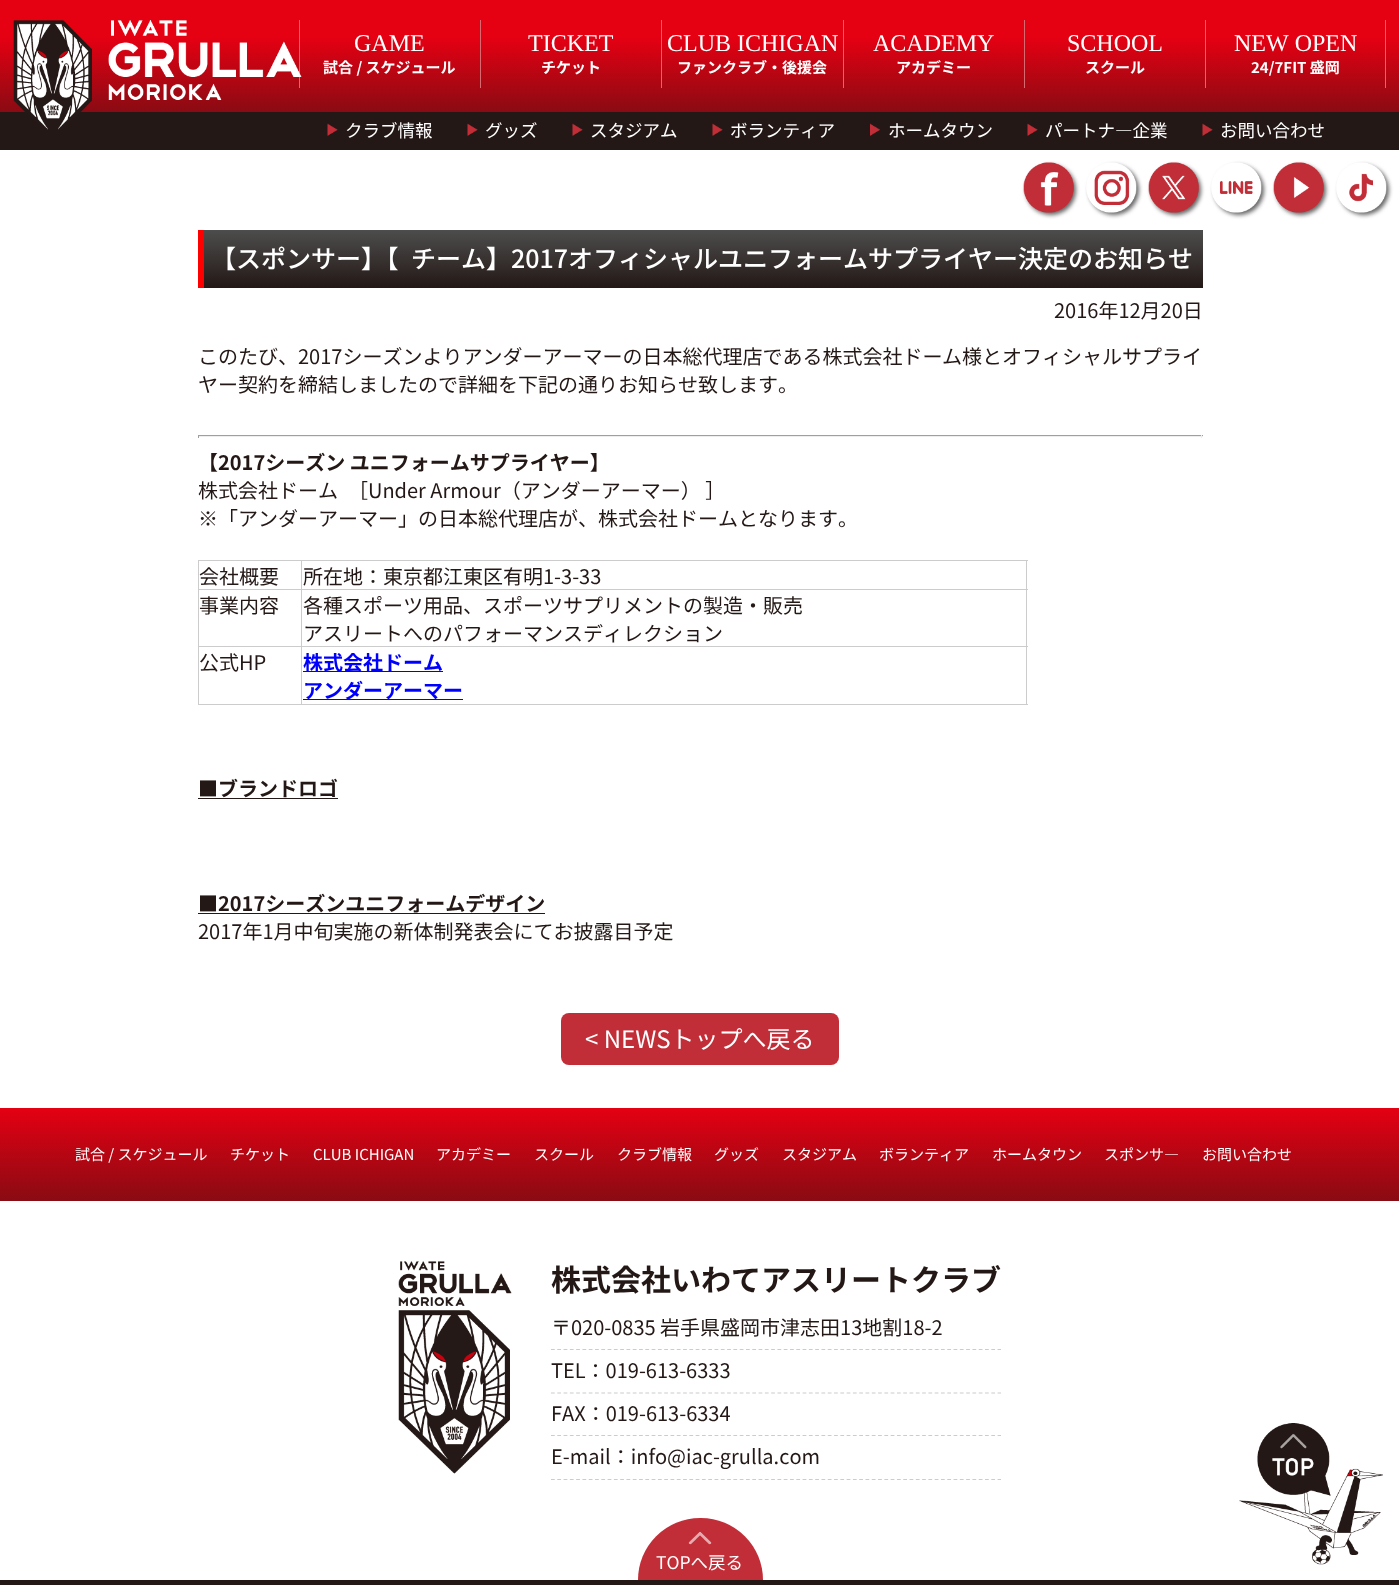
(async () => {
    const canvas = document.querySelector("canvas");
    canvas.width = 1399;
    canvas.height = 1585;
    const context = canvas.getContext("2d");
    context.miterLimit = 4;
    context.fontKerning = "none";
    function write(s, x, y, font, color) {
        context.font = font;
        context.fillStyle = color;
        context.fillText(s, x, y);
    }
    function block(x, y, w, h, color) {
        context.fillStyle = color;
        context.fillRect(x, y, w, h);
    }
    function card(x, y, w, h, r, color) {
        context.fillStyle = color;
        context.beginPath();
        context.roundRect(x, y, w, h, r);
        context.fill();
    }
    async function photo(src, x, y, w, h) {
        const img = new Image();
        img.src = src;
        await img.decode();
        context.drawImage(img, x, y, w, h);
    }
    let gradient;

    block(0, 0, 1399, 1585, "rgb(255, 255, 255)");
    gradient = context.createLinearGradient(700, 0, 700, 150);
    gradient.addColorStop(0.25, "rgb(229, 0, 18)");
    gradient.addColorStop(0.75, "rgb(137, 11, 19)");
    gradient.addColorStop(0.75, "rgb(35, 24, 21)");
    context.fillStyle = gradient;
    context.fillRect(0, 0, 1399, 150);
    block(299, 20, 1, 68, "rgb(215, 105, 113)");
    await photo("media/1.png", 13, 20, 289, 110);
    write("GAME", 354, 51, "24px Liberation Serif", "rgb(255, 255, 255)");
    write("試合 / スケジュール", 323, 73, "bold 15px Noto Sans JP", "rgb(255, 255, 255)");
    block(480, 20, 1, 68, "rgb(215, 105, 113)");
    write("TICKET", 528, 51, "24px Liberation Serif", "rgb(255, 255, 255)");
    write("チケット", 541, 73, "bold 15px Noto Sans JP", "rgb(255, 255, 255)");
    block(661, 20, 1, 68, "rgb(215, 105, 113)");
    write("CLUB ICHIGAN", 667, 51, "24px Liberation Serif", "rgb(255, 255, 255)");
    write("ファンクラブ・後援会", 677, 73, "bold 15px Noto Sans JP", "rgb(255, 255, 255)");
    block(843, 20, 1, 68, "rgb(215, 105, 113)");
    write("ACADEMY", 873, 51, "24px Liberation Serif", "rgb(255, 255, 255)");
    write("アカデミー", 896, 73, "bold 15px Noto Sans JP", "rgb(255, 255, 255)");
    block(1024, 20, 1, 68, "rgb(215, 105, 113)");
    write("SCHOOL", 1067, 51, "24px Liberation Serif", "rgb(255, 255, 255)");
    write("スクール", 1085, 73, "bold 15px Noto Sans JP", "rgb(255, 255, 255)");
    block(1385, 20, 1, 68, "rgb(215, 105, 113)");
    block(1205, 20, 1, 68, "rgb(215, 105, 113)");
    write("NEW OPEN", 1234, 51, "24px Liberation Serif", "rgb(255, 255, 255)");
    write("24/7FIT 盛岡", 1251, 73, "bold 15px Noto Sans JP", "rgb(255, 255, 255)");
    await photo("media/2.png", 327, 123, 11, 13);
    write("クラブ情報", 345, 137, "17.5px Noto Sans JP", "rgb(255, 255, 255)");
    await photo("media/2.png", 467, 123, 11, 13);
    write("グッズ", 485, 137, "17.5px Noto Sans JP", "rgb(255, 255, 255)");
    await photo("media/2.png", 572, 123, 11, 13);
    write("スタジアム", 590, 137, "17.5px Noto Sans JP", "rgb(255, 255, 255)");
    await photo("media/2.png", 712, 123, 11, 13);
    write("ボランティア", 730, 137, "17.5px Noto Sans JP", "rgb(255, 255, 255)");
    await photo("media/3.png", 870, 123, 10, 14);
    write("ホームタウン", 888, 137, "17.5px Noto Sans JP", "rgb(255, 255, 255)");
    await photo("media/2.png", 1027, 123, 11, 13);
    write("パートナ―企業", 1045, 137, "17.5px Noto Sans JP", "rgb(255, 255, 255)");
    await photo("media/2.png", 1202, 123, 11, 13);
    write("お問い合わせ", 1220, 137, "17.5px Noto Sans JP", "rgb(255, 255, 255)");
    context.fillStyle = "rgb(102, 102, 102)";
    context.filter = "blur(2px)";
    context.beginPath();
    context.roundRect(1026, 165, 50, 50, 25);
    context.fill();
    context.filter = "none";
    await photo("media/4.png", 1023, 162, 51, 51);
    context.filter = "blur(2px)";
    context.beginPath();
    context.roundRect(1089, 165, 50, 50, 25);
    context.fill();
    context.filter = "none";
    await photo("media/5.png", 1086, 162, 51, 51);
    context.filter = "blur(2px)";
    context.beginPath();
    context.roundRect(1151, 165, 50, 50, 25);
    context.fill();
    context.filter = "none";
    await photo("media/6.png", 1148, 162, 51, 51);
    context.filter = "blur(2px)";
    context.beginPath();
    context.roundRect(1214, 165, 50, 50, 25);
    context.fill();
    context.filter = "none";
    await photo("media/7.png", 1211, 162, 51, 51);
    context.filter = "blur(2px)";
    context.beginPath();
    context.roundRect(1276, 165, 50, 50, 25);
    context.fill();
    context.filter = "none";
    await photo("media/8.png", 1273, 162, 51, 51);
    context.filter = "blur(2px)";
    context.beginPath();
    context.roundRect(1339, 165, 50, 50, 25);
    context.fill();
    context.filter = "none";
    await photo("media/9.png", 1336, 162, 51, 51);
    gradient = context.createLinearGradient(703, 230, 703, 288);
    gradient.addColorStop(0, "rgb(77, 77, 77)");
    gradient.addColorStop(1, "rgb(35, 24, 21)");
    context.fillStyle = gradient;
    context.fillRect(204, 230, 999, 58);
    block(198, 230, 6, 58, "rgb(255, 0, 0)");
    write("【スポンサー】【", 211, 268, "500 25px Noto Sans JP", "rgb(255, 255, 255)");
    write("チーム】2017オフィシャルユニフォームサプライヤー決定のお知らせ", 411, 268, "500 25px Noto Sans JP", "rgb(255, 255, 255)");
    write("2016年12月20日", 1054, 318, "20px Noto Sans JP", "rgb(35, 24, 21)");
    write("このたび、2017シーズンよりアンダーアーマーの日本総代理店である株式会社ドー", 198, 364, "20px Noto Sans JP", "rgb(35, 24, 21)");
    write("ム様とオフィシャルサプライ", 942, 364, "20px Noto Sans JP", "rgb(35, 24, 21)");
    write("ヤー契約を締結しましたので詳細を下記の通りお知らせ致します。", 198, 392, "20px Noto Sans JP", "rgb(35, 24, 21)");
    block(198, 435, 1005, 1, "rgb(159, 159, 159)");
    block(1201, 435, 1, 3, "rgb(238, 238, 238)");
    block(198, 436, 1005, 1, "rgb(238, 238, 238)");
    block(198, 435, 1, 3, "rgb(159, 159, 159)");
    write("【2017シーズン ユニフォームサプライヤー】", 198, 470, "bold 20px Noto Sans JP", "rgb(35, 24, 21)");
    write("株式会社ドーム　［Under Armour（アンダーアーマー） ］", 198, 498, "20px Noto Sans JP", "rgb(35, 24, 21)");
    write("※「アンダーアーマー」の日本総代理店が、株式会社ドームとなります", 198, 526, "20px Noto Sans JP", "rgb(35, 24, 21)");
    write("。", 838, 526, "20px Noto Sans JP", "rgb(35, 24, 21)");
    block(301, 560, 727, 1, "rgb(204, 204, 204)");
    block(301, 589, 727, 1, "rgb(204, 204, 204)");
    block(301, 646, 727, 1, "rgb(204, 204, 204)");
    block(1026, 646, 1, 59, "rgb(204, 204, 204)");
    block(301, 704, 727, 1, "rgb(204, 204, 204)");
    block(301, 646, 1, 59, "rgb(204, 204, 204)");
    block(198, 646, 105, 1, "rgb(204, 204, 204)");
    block(301, 589, 1, 59, "rgb(204, 204, 204)");
    block(198, 589, 105, 1, "rgb(204, 204, 204)");
    block(301, 560, 1, 30, "rgb(204, 204, 204)");
    block(198, 560, 105, 1, "rgb(204, 204, 204)");
    block(198, 704, 105, 1, "rgb(204, 204, 204)");
    block(198, 646, 1, 59, "rgb(204, 204, 204)");
    block(198, 589, 1, 59, "rgb(204, 204, 204)");
    block(198, 560, 1, 30, "rgb(204, 204, 204)");
    write("会社概要", 199, 584, "20px Noto Sans JP", "rgb(35, 24, 21)");
    block(1026, 589, 1, 59, "rgb(204, 204, 204)");
    block(1026, 560, 1, 30, "rgb(204, 204, 204)");
    write("所在地：東京都江東区有明1-3-33", 303, 584, "20px Noto Sans JP", "rgb(35, 24, 21)");
    write("事業内容", 199, 613, "20px Noto Sans JP", "rgb(35, 24, 21)");
    write("各種スポーツ用品、スポーツサプリメントの製造・販売", 303, 613, "20px Noto Sans JP", "rgb(35, 24, 21)");
    write("アスリートへのパフォーマンスディレクション", 303, 641, "20px Noto Sans JP", "rgb(35, 24, 21)");
    write("公式HP", 199, 670, "20px Noto Sans JP", "rgb(35, 24, 21)");
    block(303, 671, 140, 1, "rgb(35, 24, 21)");
    write("株式会社ドーム", 303, 670, "bold 20px Noto Sans JP", "rgb(0, 0, 255)");
    block(303, 699, 160, 1, "rgb(35, 24, 21)");
    write("アンダーアーマー", 303, 698, "bold 20px Noto Sans JP", "rgb(0, 0, 255)");
    write("■ブランドロゴ", 198, 796, "bold 20px Noto Sans JP", "rgb(35, 24, 21)");
    block(198, 798, 140, 1, "rgb(35, 24, 21)");
    write("■2017シーズンユニフォームデザイン", 198, 911, "bold 20px Noto Sans JP", "rgb(35, 24, 21)");
    block(198, 913, 347, 1, "rgb(35, 24, 21)");
    write("2017年1月中旬実施の新体制発表会にてお披露目予定", 198, 939, "20px Noto Sans JP", "rgb(35, 24, 21)");
    card(561, 1013, 278, 52, 8, "rgb(194, 46, 56)");
    write("< NEWSトップへ戻る", 585, 1048, "24px Noto Sans JP", "rgb(255, 255, 255)");
    gradient = context.createLinearGradient(700, 1107, 700, 1201);
    gradient.addColorStop(0, "rgb(229, 0, 18)");
    gradient.addColorStop(1, "rgb(137, 11, 19)");
    context.fillStyle = gradient;
    context.fillRect(0, 1108, 1399, 93);
    write("試合 / スケジュール", 75, 1160, "15px Noto Sans JP", "rgb(255, 255, 255)");
    write("チケット", 230, 1160, "15px Noto Sans JP", "rgb(255, 255, 255)");
    write("CLUB ICHIGAN", 313, 1160, "15px Noto Sans JP", "rgb(255, 255, 255)");
    write("アカデミー", 436, 1160, "15px Noto Sans JP", "rgb(255, 255, 255)");
    write("スクール", 534, 1160, "15px Noto Sans JP", "rgb(255, 255, 255)");
    write("クラブ情報", 617, 1160, "15px Noto Sans JP", "rgb(255, 255, 255)");
    write("グッズ", 714, 1160, "15px Noto Sans JP", "rgb(255, 255, 255)");
    write("スタジアム", 782, 1160, "15px Noto Sans JP", "rgb(255, 255, 255)");
    write("ボランティア", 879, 1160, "15px Noto Sans JP", "rgb(255, 255, 255)");
    write("ホームタウン", 992, 1160, "15px Noto Sans JP", "rgb(255, 255, 255)");
    write("スポンサ―", 1104, 1160, "15px Noto Sans JP", "rgb(255, 255, 255)");
    write("お問い合わせ", 1202, 1160, "15px Noto Sans JP", "rgb(255, 255, 255)");
    await photo("media/10.png", 398, 1261, 114, 213);
    write("株式会社いわてアスリートクラブ", 551, 1291, "bold 30px Noto Sans JP", "rgb(35, 24, 21)");
    context.beginPath();
    context.moveTo(551, 1349.5);
    context.lineTo(1001, 1349.5);
    context.strokeStyle = "rgb(204, 204, 204)";
    context.lineWidth = 1.2;
    context.setLineDash([3.75, 2.54]);
    context.stroke();
    write("〒020-0835 岩手県盛岡市津志田13地割18-2", 551, 1335, "20px Noto Sans JP", "rgb(35, 24, 21)");
    context.beginPath();
    context.moveTo(551, 1393);
    context.lineTo(1001, 1393);
    context.stroke();
    write("TEL：019-613-6333", 551, 1378, "20px Noto Sans JP", "rgb(35, 24, 21)");
    context.beginPath();
    context.moveTo(551, 1435.5);
    context.lineTo(1001, 1435.5);
    context.stroke();
    write("FAX：019-613-6334", 551, 1421, "20px Noto Sans JP", "rgb(35, 24, 21)");
    context.beginPath();
    context.moveTo(551, 1479.5);
    context.lineTo(1001, 1479.5);
    context.stroke();
    write("E-mail：info@iac-grulla.com", 551, 1464, "20px Noto Sans JP", "rgb(35, 24, 21)");
    context.fillStyle = "rgb(194, 46, 56)";
    context.beginPath();
    context.roundRect(638, 1518, 125, 62, [62, 62, 0, 0]);
    context.fill();
    await photo("media/11.png", 688, 1532, 24, 13);
    write("TOPへ戻る", 656, 1569, "17.5px Noto Sans JP", "rgb(255, 255, 255)");
    block(0, 1580, 1399, 5, "rgb(35, 24, 21)");
    await photo("media/12.png", 1239, 1423, 144, 142);
})();
